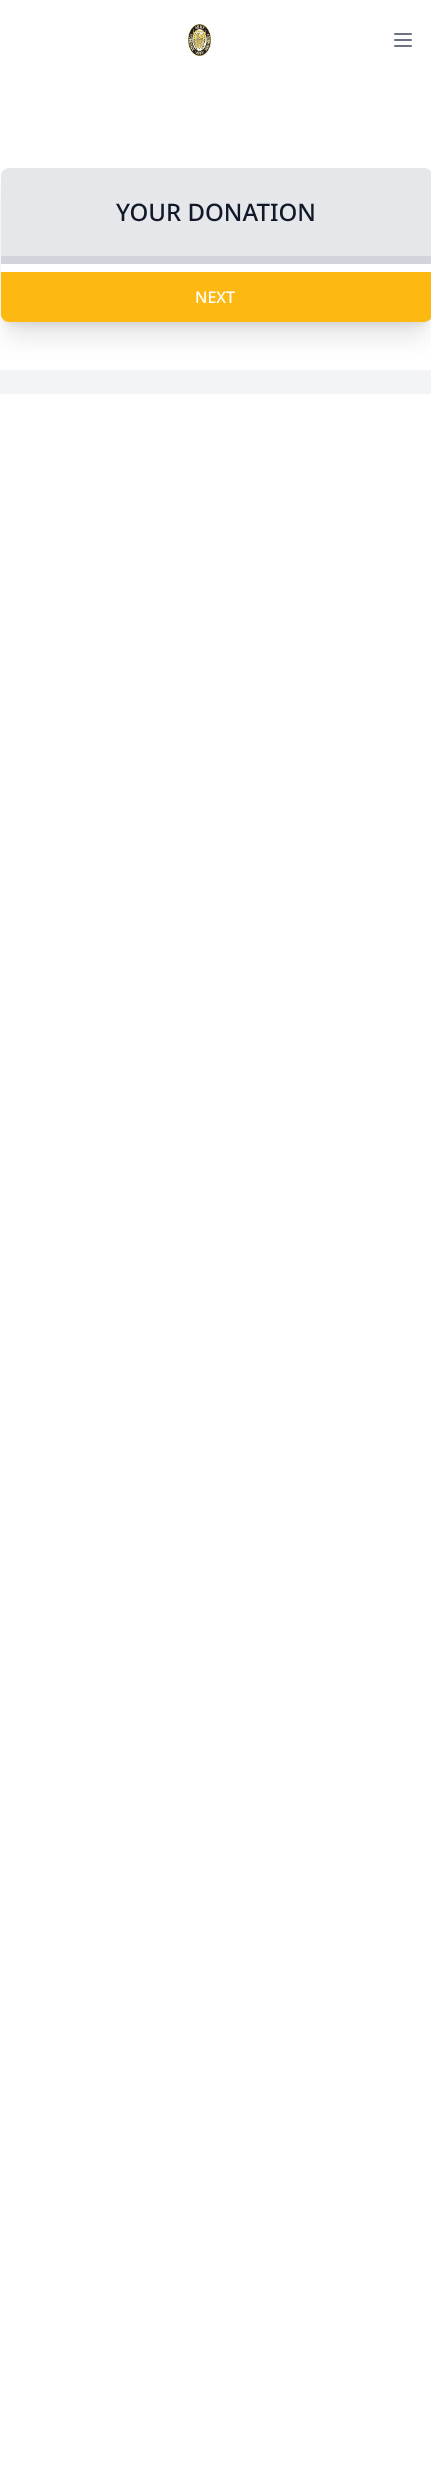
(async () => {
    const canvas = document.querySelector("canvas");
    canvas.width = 431;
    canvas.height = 2465;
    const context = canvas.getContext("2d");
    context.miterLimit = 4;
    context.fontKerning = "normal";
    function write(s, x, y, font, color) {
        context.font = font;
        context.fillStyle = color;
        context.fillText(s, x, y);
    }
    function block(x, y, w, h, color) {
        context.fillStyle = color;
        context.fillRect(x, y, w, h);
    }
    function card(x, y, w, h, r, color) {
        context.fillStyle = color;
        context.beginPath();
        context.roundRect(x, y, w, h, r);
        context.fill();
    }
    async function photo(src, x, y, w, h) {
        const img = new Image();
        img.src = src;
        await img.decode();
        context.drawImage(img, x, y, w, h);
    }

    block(0, 0, 431, 2465, "rgb(255, 255, 255)");
    await photo("media/1.png", 188, 24, 23, 32);
    context.beginPath();
    context.moveTo(395, 34);
    context.lineTo(411, 34);
    context.moveTo(395, 40);
    context.lineTo(411, 40);
    context.moveTo(395, 46);
    context.lineTo(411, 46);
    context.strokeStyle = "rgb(107, 114, 128)";
    context.lineWidth = 2;
    context.lineCap = "round";
    context.lineJoin = "round";
    context.stroke();
    context.fillStyle = "rgba(0, 0, 0, 0.1)";
    context.filter = "blur(5px)";
    context.beginPath();
    context.roundRect(7, 182, 419, 142, 2);
    context.fill();
    context.filter = "none";
    block(0, 370, 431, 24, "rgb(243, 244, 246)");
    context.fillStyle = "rgba(0, 0, 0, 0.1)";
    context.filter = "blur(12.5px)";
    context.beginPath();
    context.roundRect(6, 193, 421, 144, 3);
    context.fill();
    context.filter = "none";
    card(1, 168, 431, 154, 8, "rgb(229, 231, 235)");
    write("YOUR DONATION", 116, 221, "500 24px Noto Sans", "rgb(17, 24, 39)");
    context.fillStyle = "rgb(255, 255, 255)";
    context.beginPath();
    context.moveTo(1, 256);
    context.lineTo(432, 256);
    context.lineTo(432, 314);
    context.bezierCurveTo(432, 318.5, 428.5, 322, 424, 322);
    context.lineTo(9, 322);
    context.bezierCurveTo(4.5, 322, 1, 318.5, 1, 314);
    context.closePath();
    context.fill();
    block(1, 256, 430, 8, "rgb(209, 213, 219)");
    context.fillStyle = "rgb(253, 184, 18)";
    context.beginPath();
    context.moveTo(1, 272);
    context.lineTo(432, 272);
    context.lineTo(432, 314);
    context.bezierCurveTo(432, 318.5, 428.5, 322, 424, 322);
    context.lineTo(9, 322);
    context.bezierCurveTo(4.5, 322, 1, 318.5, 1, 314);
    context.closePath();
    context.fill();
    write("NEXT", 195, 303, "500 16px Noto Sans", "rgb(255, 255, 255)");
})();
